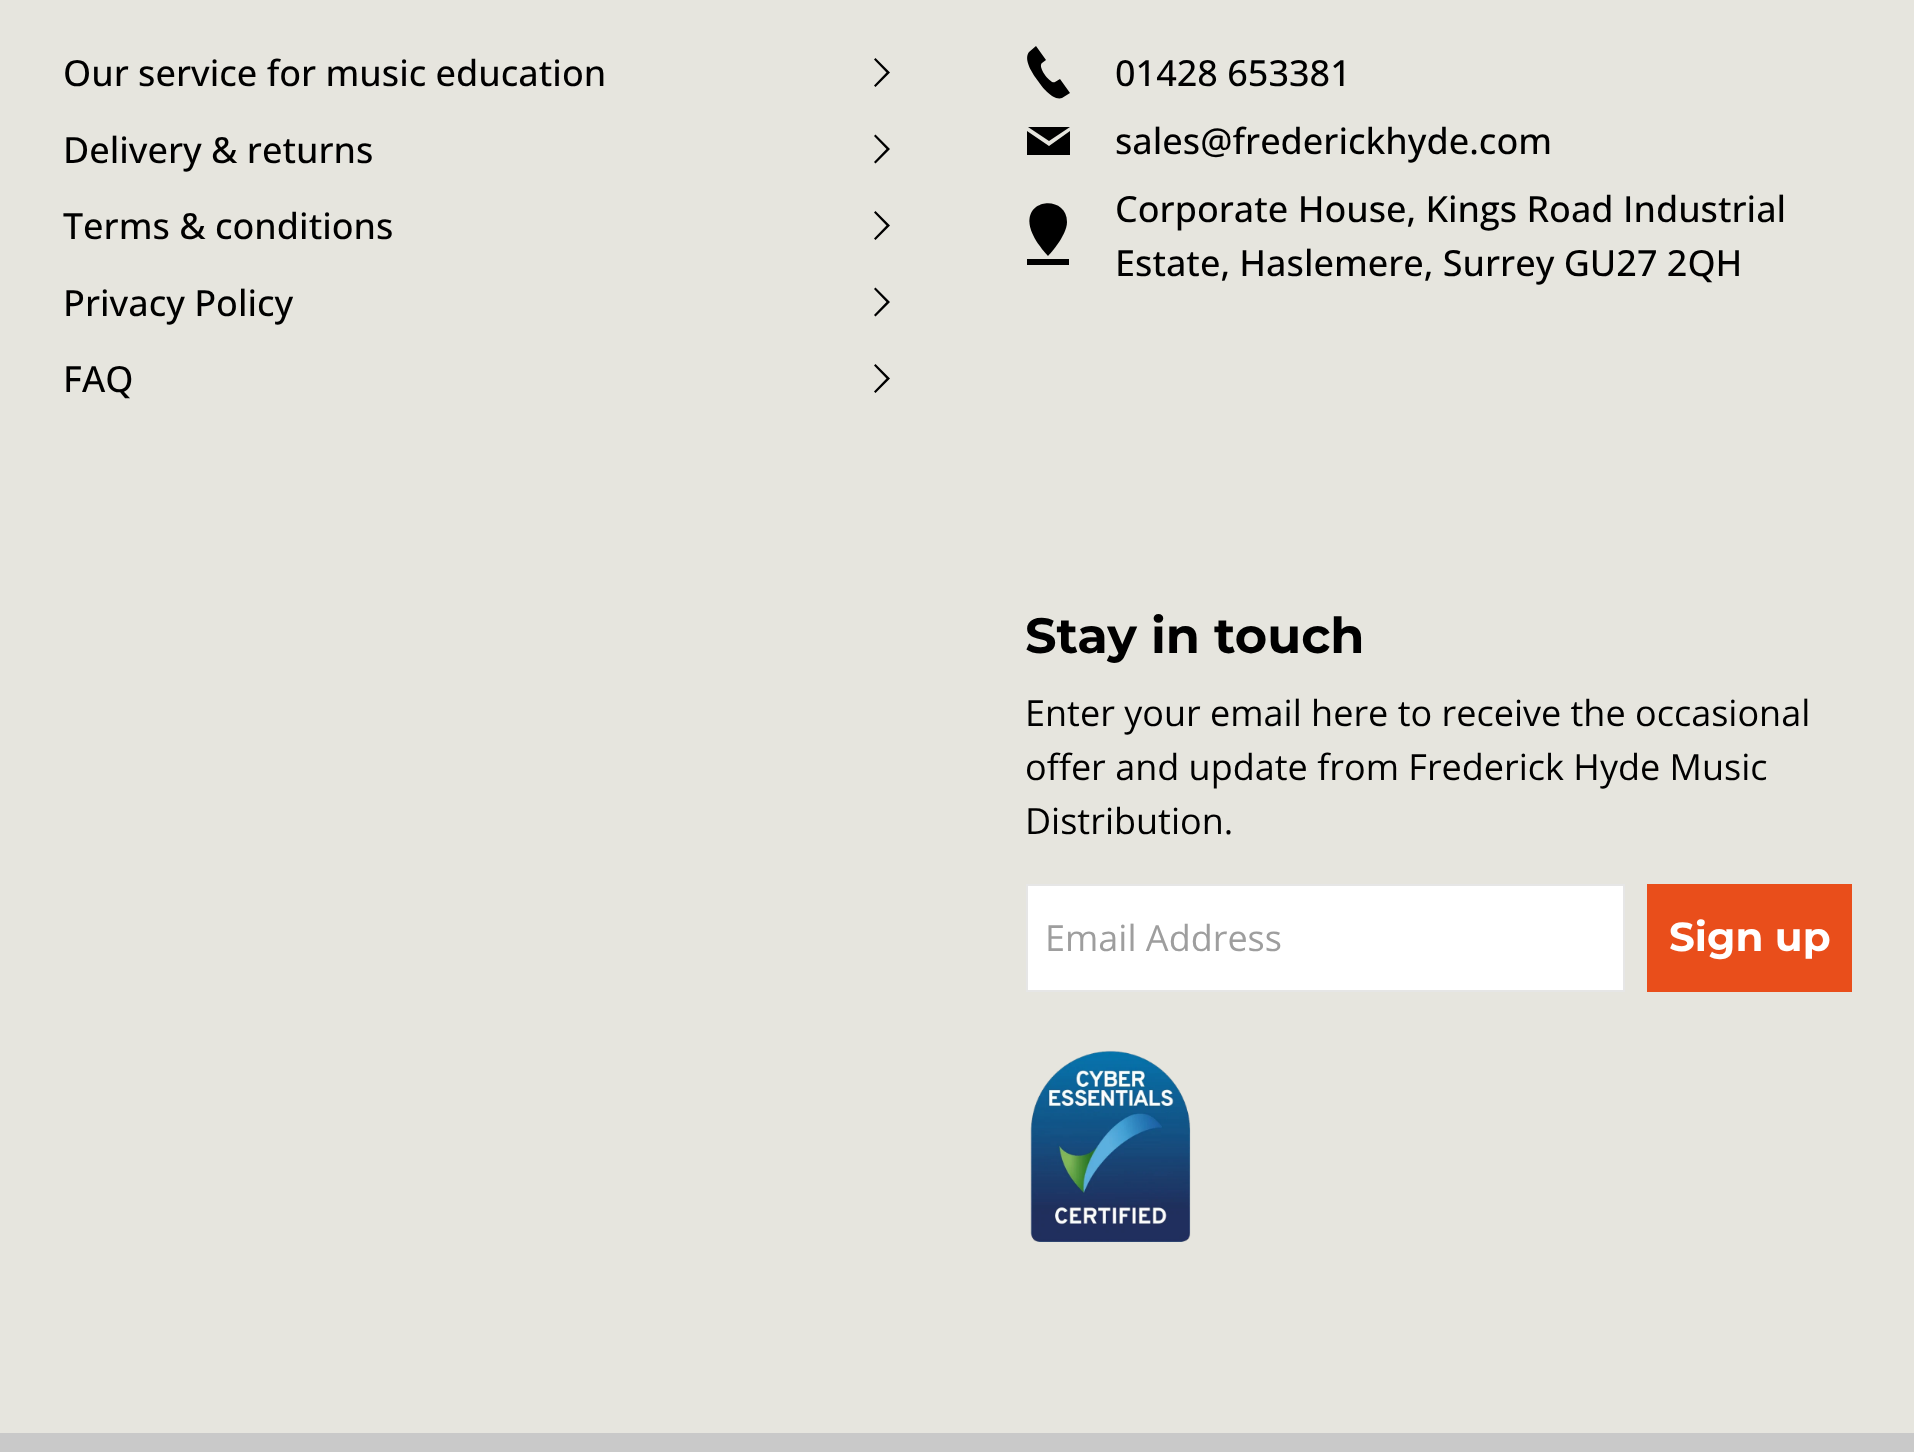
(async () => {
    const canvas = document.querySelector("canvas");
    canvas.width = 1914;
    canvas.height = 1452;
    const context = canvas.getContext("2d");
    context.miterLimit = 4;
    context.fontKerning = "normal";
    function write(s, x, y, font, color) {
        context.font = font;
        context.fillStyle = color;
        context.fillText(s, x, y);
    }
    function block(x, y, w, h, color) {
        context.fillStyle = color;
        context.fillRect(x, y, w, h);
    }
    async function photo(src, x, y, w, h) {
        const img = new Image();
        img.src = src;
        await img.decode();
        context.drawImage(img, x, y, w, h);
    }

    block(0, 0, 1914, 1452, "rgb(230, 229, 222)");
    write("Our service for music education", 63, 86, "500 36px Open Sans", "rgb(0, 0, 0)");
    context.beginPath();
    context.moveTo(875.5, 87);
    context.lineTo(874, 85.5);
    context.lineTo(886.5, 72.5);
    context.lineTo(874, 59.5);
    context.lineTo(875.5, 58);
    context.lineTo(890, 72.5);
    context.closePath();
    context.fill();
    write("Delivery & returns", 63, 163, "500 36px Open Sans", "rgb(0, 0, 0)");
    context.beginPath();
    context.moveTo(875.5, 163.5);
    context.lineTo(874, 162);
    context.lineTo(886.5, 149);
    context.lineTo(874, 136);
    context.lineTo(875.5, 134.5);
    context.lineTo(890, 149);
    context.closePath();
    context.fill();
    write("Terms & conditions", 63, 239, "500 36px Open Sans", "rgb(0, 0, 0)");
    context.beginPath();
    context.moveTo(875.5, 240);
    context.lineTo(874, 238.5);
    context.lineTo(886.5, 225.5);
    context.lineTo(874, 212.5);
    context.lineTo(875.5, 211);
    context.lineTo(890, 225.5);
    context.closePath();
    context.fill();
    write("Privacy Policy", 63, 316, "500 36px Open Sans", "rgb(0, 0, 0)");
    context.beginPath();
    context.moveTo(875.5, 316.5);
    context.lineTo(874, 315);
    context.lineTo(886.5, 302);
    context.lineTo(874, 289);
    context.lineTo(875.5, 287.5);
    context.lineTo(890, 302);
    context.closePath();
    context.fill();
    write("FAQ", 63, 392, "500 36px Open Sans", "rgb(0, 0, 0)");
    context.beginPath();
    context.moveTo(875.5, 393);
    context.lineTo(874, 391.5);
    context.lineTo(886.5, 378.5);
    context.lineTo(874, 365.5);
    context.lineTo(875.5, 364);
    context.lineTo(890, 378.5);
    context.closePath();
    context.fill();
    context.beginPath();
    context.moveTo(1070, 93);
    context.lineTo(1060, 79);
    context.lineTo(1055, 82);
    context.bezierCurveTo(1051, 85, 1037, 67, 1042, 63);
    context.lineTo(1046, 60);
    context.lineTo(1036, 46);
    context.lineTo(1029, 52);
    context.bezierCurveTo(1023, 60, 1033, 74, 1038, 81);
    context.bezierCurveTo(1042, 87, 1053, 101, 1062, 98);
    context.closePath();
    context.fill();
    write("01428 653381", 1115, 86, "500 36px Open Sans", "rgb(0, 0, 0)");
    context.beginPath();
    context.moveTo(1070, 155);
    context.lineTo(1070, 131);
    context.lineTo(1049, 146);
    context.lineTo(1027, 131);
    context.lineTo(1027, 155);
    context.closePath();
    context.fill();
    context.beginPath();
    context.moveTo(1070, 127);
    context.lineTo(1049, 141);
    context.lineTo(1028, 127);
    context.closePath();
    context.fill();
    write("sales@frederickhyde.com", 1115, 154, "500 36px Open Sans", "rgb(0, 0, 0)");
    context.beginPath();
    context.moveTo(1067, 222);
    context.bezierCurveTo(1067, 188, 997, 201, 1048, 256);
    context.bezierCurveTo(1048, 256, 1067, 236, 1067, 222);
    context.closePath();
    context.fill();
    block(1027, 259, 42, 6, "rgb(0, 0, 0)");
    write("Corporate House, Kings Road Industrial", 1115, 222, "500 36px Open Sans", "rgb(0, 0, 0)");
    write("Estate, Haslemere, Surrey GU27 2QH", 1115, 276, "500 36px Open Sans", "rgb(0, 0, 0)");
    write("Stay in touch", 1025, 653, "bold 49.5px Montserrat", "rgb(0, 0, 0)");
    write("Enter your email here to receive the occasional", 1025, 726, "36px Open Sans", "rgb(0, 0, 0)");
    write("offer and update from Frederick Hyde Music", 1025, 780, "36px Open Sans", "rgb(0, 0, 0)");
    write("Distribution.", 1025, 834, "36px Open Sans", "rgb(0, 0, 0)");
    context.fillStyle = "rgb(255, 255, 255)";
    context.beginPath();
    context.rect(1027, 885, 597, 106);
    context.fill();
    context.strokeStyle = "rgb(230, 230, 230)";
    context.lineWidth = 2;
    context.stroke();
    write("Email Address", 1045, 951, "36px Open Sans", "rgb(158, 158, 158)");
    block(1647, 884, 205, 108, "rgb(233, 78, 27)");
    write("Sign up", 1669, 951, "bold 40.5px Montserrat", "rgb(255, 255, 255)");
    await photo("media/1.png", 1030, 1050, 161, 192);
    block(0, 1433, 1914, 19, "rgb(201, 201, 201)");
})();
